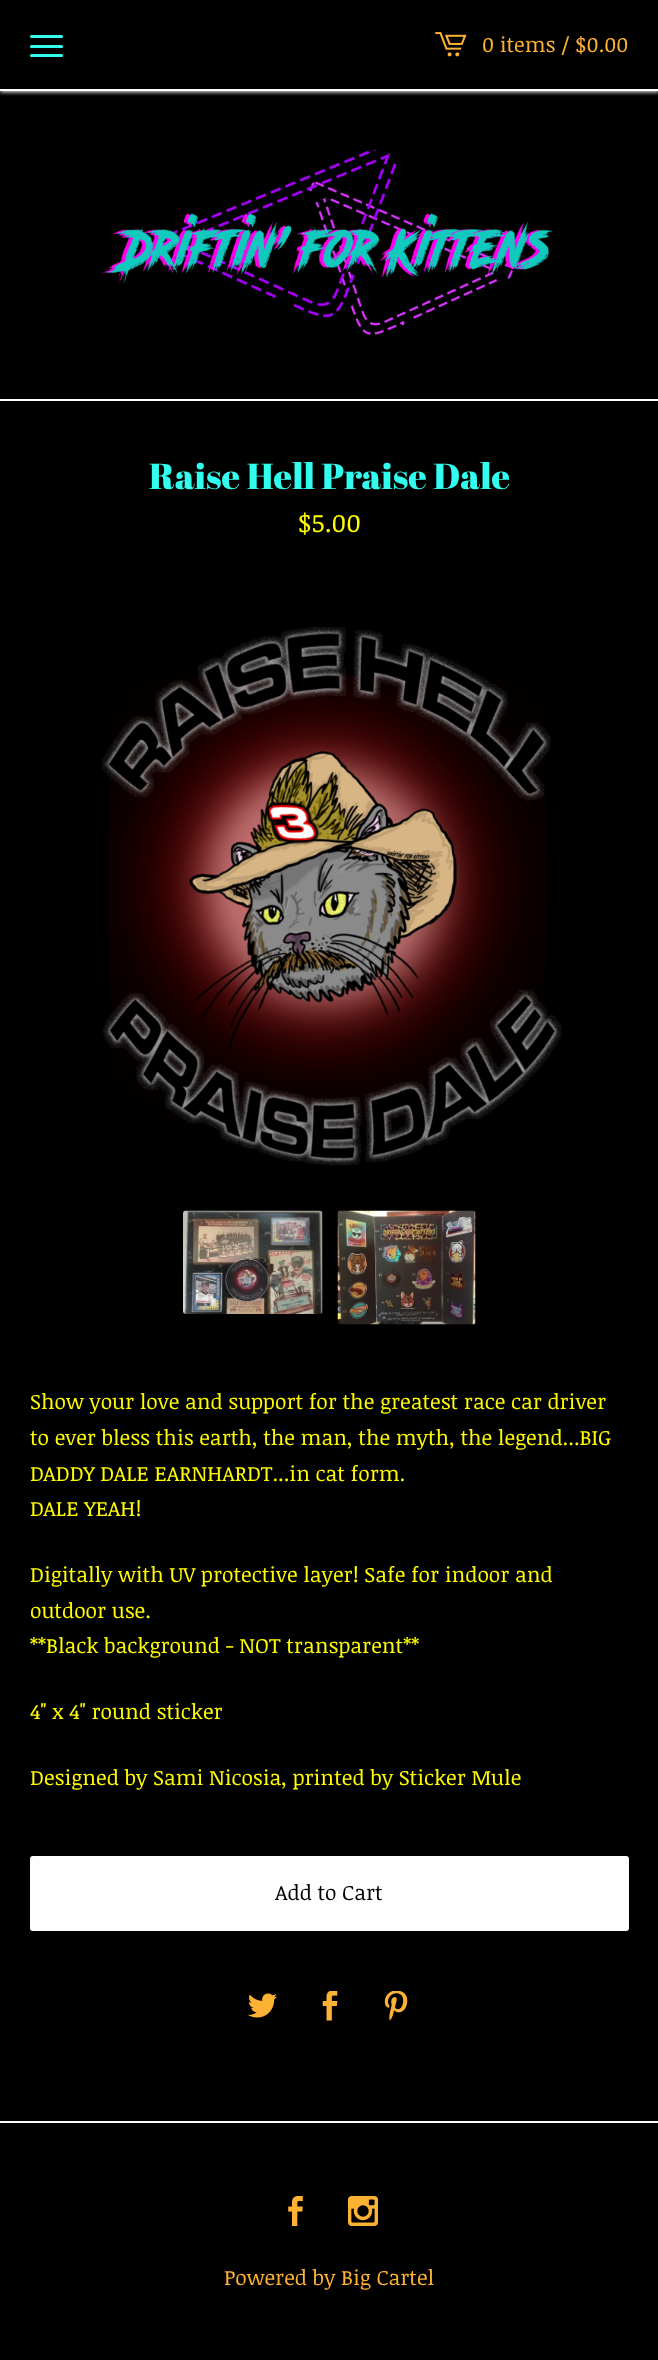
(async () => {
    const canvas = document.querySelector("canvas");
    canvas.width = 658;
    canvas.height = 2360;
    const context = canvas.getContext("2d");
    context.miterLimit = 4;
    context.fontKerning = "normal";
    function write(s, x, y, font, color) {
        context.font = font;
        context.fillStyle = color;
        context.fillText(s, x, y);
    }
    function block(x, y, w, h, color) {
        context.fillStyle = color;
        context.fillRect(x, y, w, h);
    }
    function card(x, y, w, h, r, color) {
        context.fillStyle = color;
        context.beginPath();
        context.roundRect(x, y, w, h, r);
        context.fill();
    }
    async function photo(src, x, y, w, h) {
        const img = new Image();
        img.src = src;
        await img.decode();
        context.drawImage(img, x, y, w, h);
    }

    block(0, 0, 658, 2360, "rgb(0, 0, 0)");
    context.save();
    context.beginPath();
    context.rect(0, 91, 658, 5);
    context.clip();
    context.fillStyle = "rgb(255, 255, 255)";
    context.filter = "blur(2px)";
    context.beginPath();
    context.rect(0, 2, 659, 90);
    context.fill();
    context.filter = "none";
    context.restore();
    block(0, 89, 658, 2, "rgb(255, 255, 255)");
    card(30, 35, 33, 3, 1.5, "rgb(49, 254, 239)");
    card(30, 45, 33, 3, 1.5, "rgb(49, 254, 239)");
    card(30, 54, 33, 3, 1.5, "rgb(49, 254, 239)");
    await photo("media/1.png", 435, 32, 32, 25);
    write("0 items / $0.00", 482, 52, "21px Noticia Text", "rgb(254, 178, 52)");
    block(0, 399, 658, 2, "rgb(255, 255, 255)");
    await photo("media/2.png", 101, 150, 452, 185);
    write("Raise Hell Praise Dale", 149, 489, "36px Abril Fatface", "rgb(49, 254, 239)");
    write("$5.00", 298, 532, "25.5px Noticia Text", "rgb(255, 253, 0)");
    await photo("media/3.png", 102, 627, 460, 539);
    await photo("media/4.png", 183, 1210, 140, 104);
    await photo("media/5.png", 337, 1210, 139, 115);
    write("Show your love and support for the greatest race car driver", 30, 1409, "21px Noticia Text", "rgb(255, 253, 0)");
    write("to ever bless this earth, the man, the myth, the legend...BIG", 30, 1445, "21px Noticia Text", "rgb(255, 253, 0)");
    write("DADDY DALE EARNHARDT...in cat form.", 30, 1481, "21px Noticia Text", "rgb(255, 253, 0)");
    write("DALE YEAH!", 30, 1516, "21px Noticia Text", "rgb(255, 253, 0)");
    write("Digitally with UV protective layer! Safe for indoor and", 30, 1582, "21px Noticia Text", "rgb(255, 253, 0)");
    write("outdoor use.", 30, 1618, "21px Noticia Text", "rgb(255, 253, 0)");
    write("**Black background - NOT transparent**", 30, 1653, "21px Noticia Text", "rgb(255, 253, 0)");
    write("4\" x 4\" round sticker", 30, 1719, "21px Noticia Text", "rgb(255, 253, 0)");
    write("Designed by Sami Nicosia, printed by Sticker Mule", 30, 1785, "21px Noticia Text", "rgb(255, 253, 0)");
    context.fillStyle = "rgb(255, 255, 255)";
    context.beginPath();
    context.roundRect(31, 1857, 597, 73, 2);
    context.fill();
    context.strokeStyle = "rgb(255, 255, 255)";
    context.lineWidth = 2;
    context.stroke();
    write("Add to Cart", 275, 1900, "21px Noticia Text", "rgb(0, 0, 0)");
    await photo("media/6.png", 248, 1993, 29, 25);
    await photo("media/7.png", 322, 1991, 16, 30);
    await photo("media/8.png", 384, 1991, 24, 30);
    block(0, 2121, 658, 2, "rgb(255, 255, 255)");
    await photo("media/9.png", 288, 2196, 15, 30);
    await photo("media/10.png", 348, 2196, 30, 30);
    write("Powered by Big Cartel", 224, 2285, "21px Noticia Text", "rgb(254, 178, 52)");
})();
